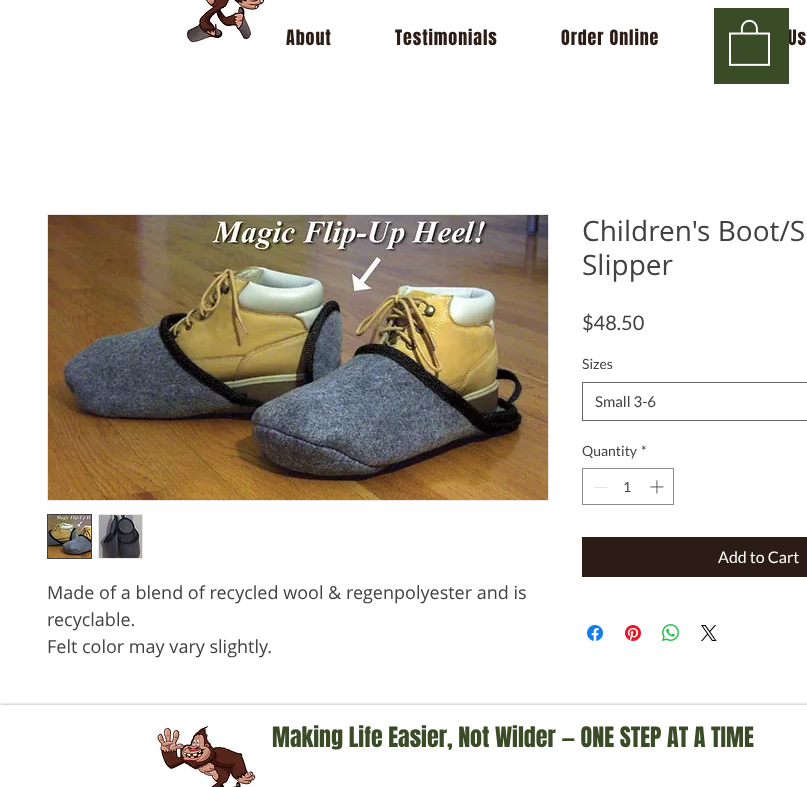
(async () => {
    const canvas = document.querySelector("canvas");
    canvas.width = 807;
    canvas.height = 787;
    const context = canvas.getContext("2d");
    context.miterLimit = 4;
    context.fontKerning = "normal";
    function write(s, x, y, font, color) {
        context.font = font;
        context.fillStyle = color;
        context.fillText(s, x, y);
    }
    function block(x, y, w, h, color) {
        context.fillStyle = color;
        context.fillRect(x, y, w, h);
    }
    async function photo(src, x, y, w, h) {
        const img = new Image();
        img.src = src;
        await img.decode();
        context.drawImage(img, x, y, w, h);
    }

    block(0, 0, 807, 787, "rgb(255, 255, 255)");
    context.letterSpacing = "0.9px";
    write("Us", 788, 45, "18px Anton", "rgb(43, 28, 22)");
    block(714, 8, 75, 76, "rgb(58, 75, 39)");
    await photo("media/1.png", 729, 19, 41, 47);
    await photo("media/2.png", 186, 0, 80, 44);
    await photo("media/3.png", 805, 0, 2, 4);
    write("About", 286, 45, "18px Anton", "rgb(43, 28, 22)");
    write("Testimonials", 395, 45, "18px Anton", "rgb(43, 28, 22)");
    write("Order Online", 561, 45, "18px Anton", "rgb(43, 28, 22)");
    context.letterSpacing = "0px";
    write("Children's Boot/S", 582, 241, "28px Open Sans", "rgb(65, 65, 65)");
    write("Slipper", 582, 275, "28px Open Sans", "rgb(65, 65, 65)");
    write("$48.50", 582, 330, "20px Lato", "rgb(65, 65, 65)");
    write("Sizes", 582, 369, "14px Lato", "rgb(65, 65, 65)");
    context.strokeStyle = "rgb(102, 102, 102)";
    context.strokeRect(582.5, 382.5, 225, 38);
    write("Small 3-6", 595, 407, "15px Lato", "rgb(65, 65, 65)");
    write("Quantity", 582, 456, "14px Lato", "rgb(65, 65, 65)");
    write("*", 641, 456, "14px Lato", "rgb(65, 65, 65)");
    context.strokeStyle = "rgb(141, 141, 141)";
    context.strokeRect(582.5, 468.5, 91, 36);
    block(594, 487, 13, 1, "rgb(227, 227, 227)");
    write("1", 623, 492, "14px Lato", "rgb(65, 65, 65)");
    await photo("media/4.png", 650, 480, 14, 14);
    block(582, 537, 225, 40, "rgb(43, 28, 22)");
    write("Add to Cart", 718, 563, "16px Lato", "rgb(255, 255, 255)");
    await photo("media/5.png", 587, 625, 16, 16);
    await photo("media/6.png", 625, 625, 16, 16);
    await photo("media/7.png", 662, 624, 17, 17);
    await photo("media/8.png", 701, 625, 16, 16);
    context.strokeStyle = "rgb(232, 230, 230)";
    context.strokeRect(47.5, 214.5, 501, 286);
    await photo("media/9.png", 48, 215, 500, 285);
    context.strokeStyle = "rgb(65, 65, 65)";
    context.strokeRect(47.5, 514.5, 44, 44);
    await photo("media/10.png", 48, 515, 43, 43);
    context.strokeStyle = "rgb(232, 230, 230)";
    context.strokeRect(98.5, 514.5, 44, 44);
    await photo("media/11.png", 99, 515, 43, 43);
    write("Made of a blend of recycled wool & regenpolyester and is", 47, 599, "18px Open Sans", "rgb(65, 65, 65)");
    write("recyclable.", 47, 626, "18px Open Sans", "rgb(65, 65, 65)");
    write("Felt color may vary slightly.", 47, 653, "18px Open Sans", "rgb(65, 65, 65)");
    context.save();
    context.beginPath();
    context.rect(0, 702, 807, 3);
    context.clip();
    context.fillStyle = "rgba(0, 0, 0, 0.6)";
    context.filter = "blur(2px)";
    context.beginPath();
    context.rect(0, 706, 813, 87);
    context.fill();
    context.filter = "none";
    context.restore();
    await photo("media/12.png", 156, 723, 101, 64);
    write("Making Life Easier, Not Wilder — ONE STEP AT A TIME", 272, 747, "24px Anton", "rgb(58, 75, 39)");
})();
